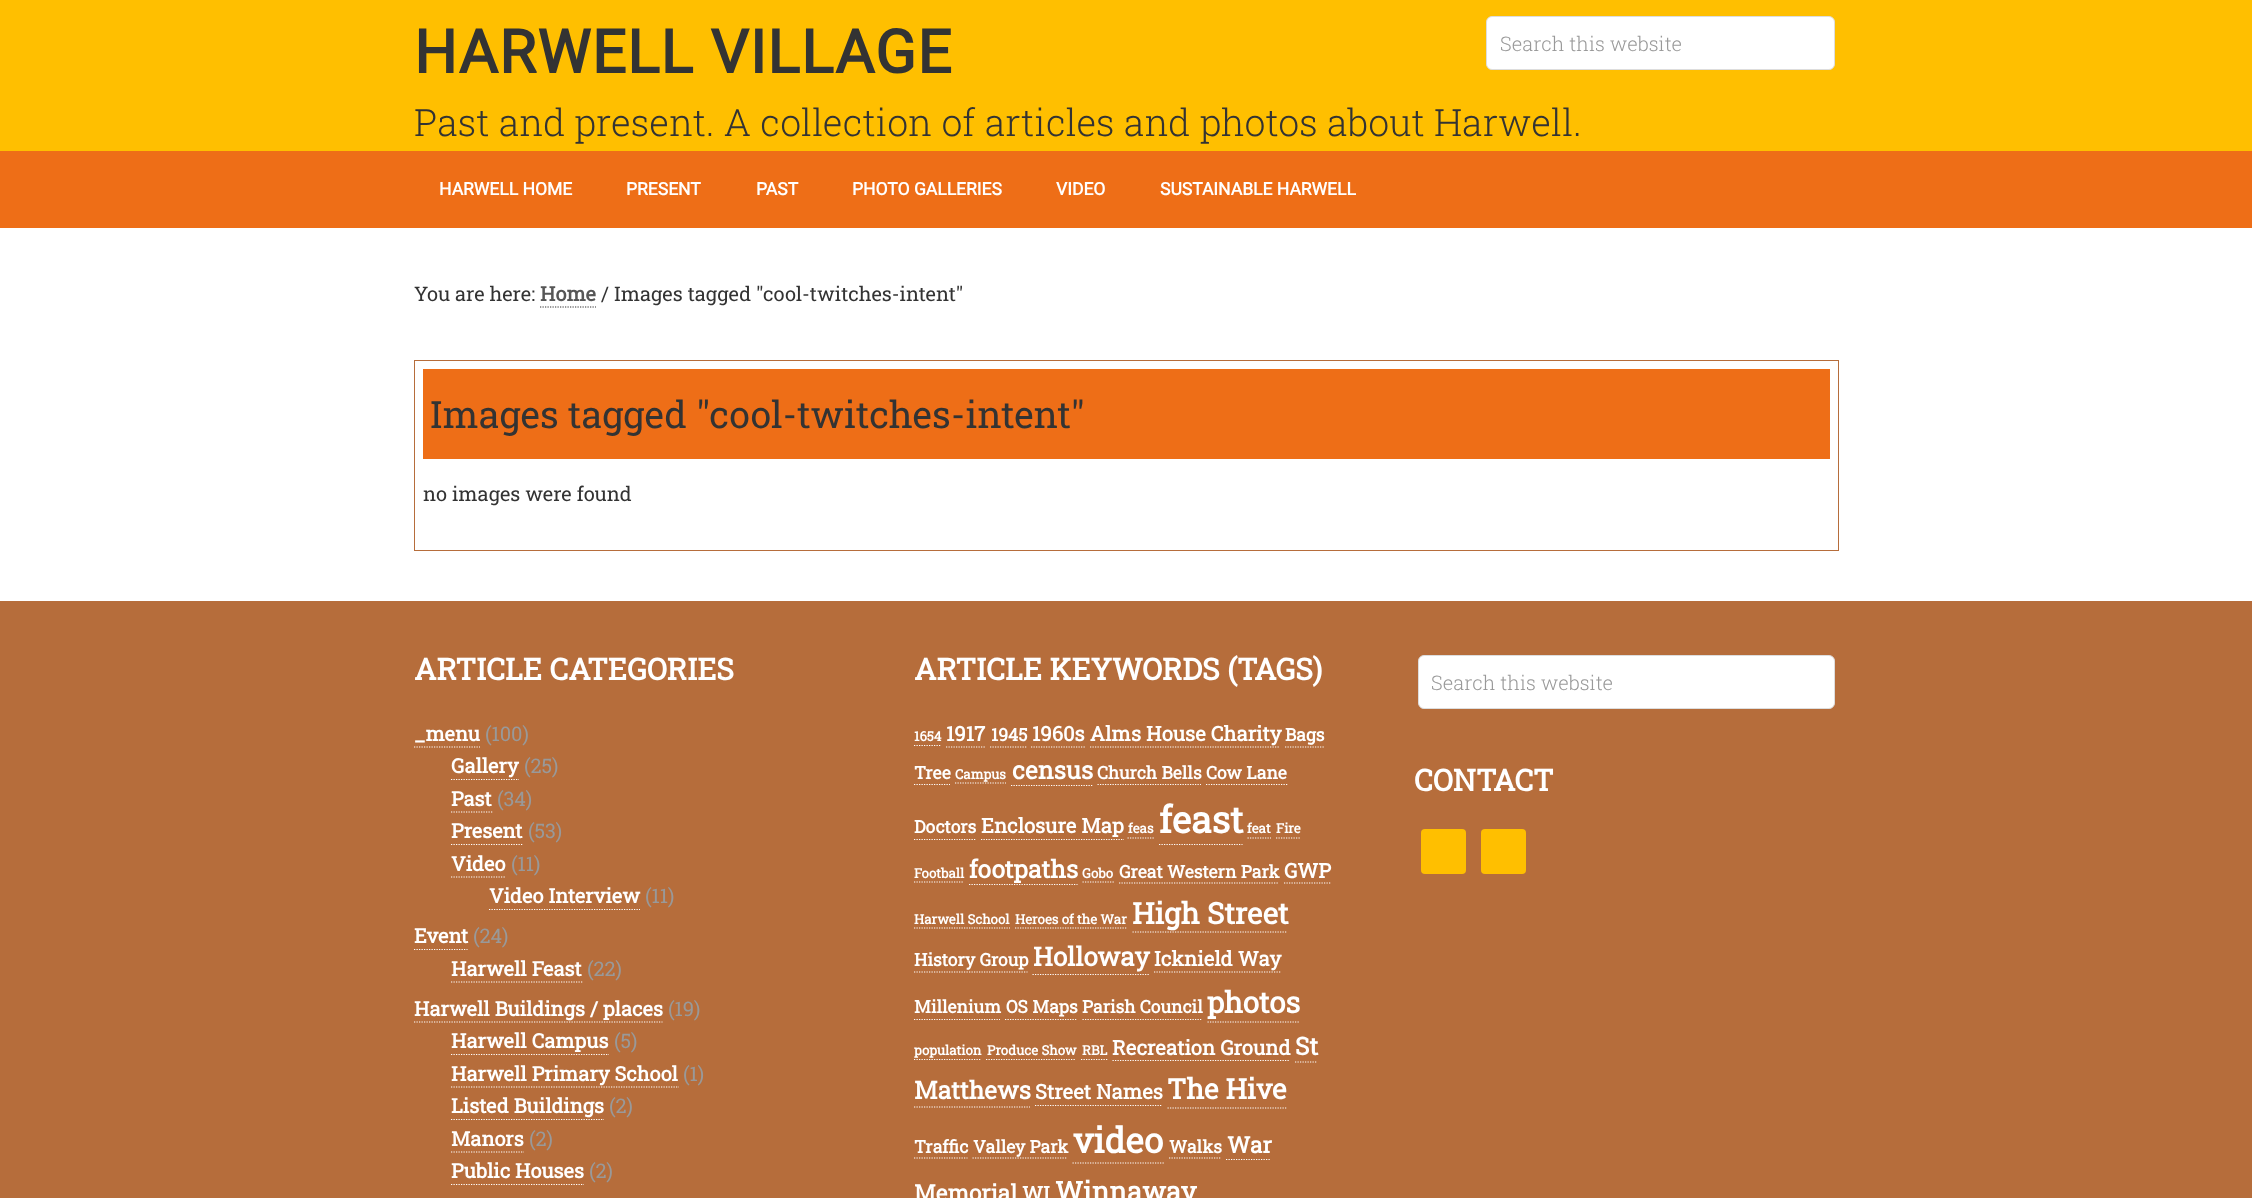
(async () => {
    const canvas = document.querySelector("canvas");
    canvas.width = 2252;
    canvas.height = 1198;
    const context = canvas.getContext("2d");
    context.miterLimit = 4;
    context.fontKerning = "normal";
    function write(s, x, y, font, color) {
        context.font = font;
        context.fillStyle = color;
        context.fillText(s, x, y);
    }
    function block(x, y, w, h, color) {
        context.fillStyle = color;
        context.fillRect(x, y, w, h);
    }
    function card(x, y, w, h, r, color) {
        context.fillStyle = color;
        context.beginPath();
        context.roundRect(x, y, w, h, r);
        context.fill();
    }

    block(0, 0, 2252, 1198, "rgb(255, 191, 0)");
    context.letterSpacing = "1.25px";
    write("HARWELL VILLAGE", 414, 73, "bold 60px Roboto", "rgb(51, 51, 51)");
    context.fillStyle = "rgb(255, 255, 255)";
    context.beginPath();
    context.roundRect(1486.5, 16.5, 348, 53, 5.5);
    context.fill();
    context.strokeStyle = "rgb(221, 221, 221)";
    context.stroke();
    context.letterSpacing = "0px";
    write("Search this website", 1500, 51, "300 20px Roboto Slab", "rgb(153, 153, 153)");
    write("Past and present. A collection of articles and photos about Harwell.", 414, 136, "300 37.5px Roboto Slab", "rgb(51, 51, 51)");
    block(0, 151, 2252, 77, "rgb(238, 110, 23)");
    write("HARWELL HOME", 439, 195, "bold 17.5px Roboto", "rgb(255, 255, 255)");
    write("PRESENT", 626, 195, "bold 17.5px Roboto", "rgb(255, 255, 255)");
    write("PAST", 756, 195, "bold 17.5px Roboto", "rgb(255, 255, 255)");
    write("PHOTO GALLERIES", 852, 195, "bold 17.5px Roboto", "rgb(255, 255, 255)");
    write("VIDEO", 1056, 195, "bold 17.5px Roboto", "rgb(255, 255, 255)");
    write("SUSTAINABLE HARWELL", 1160, 195, "bold 17.5px Roboto", "rgb(255, 255, 255)");
    block(0, 228, 2252, 373, "rgb(255, 255, 255)");
    write("You are here:", 414, 301, "20px Roboto Slab", "rgb(51, 51, 51)");
    write("Home", 540, 301, "bold 20px Roboto Slab", "rgb(86, 86, 86)");
    context.beginPath();
    context.moveTo(540, 307);
    context.lineTo(596, 307);
    context.strokeStyle = "rgb(51, 51, 51)";
    context.lineWidth = 1.2;
    context.setLineDash([1.25, 1.25]);
    context.stroke();
    write("/ Images tagged \"cool-twitches-intent\"", 601, 301, "20px Roboto Slab", "rgb(51, 51, 51)");
    context.strokeStyle = "rgb(182, 109, 59)";
    context.lineWidth = 1;
    context.setLineDash([]);
    context.strokeRect(414.5, 360.5, 1424, 190);
    block(423, 369, 1407, 90, "rgb(238, 110, 23)");
    write("Images tagged \"cool-twitches-intent\"", 430, 428, "37.5px Roboto Slab", "rgb(51, 51, 51)");
    write("no images were found", 423, 501, "20px Roboto Slab", "rgb(51, 51, 51)");
    block(0, 601, 2252, 597, "rgb(182, 109, 59)");
    write("ARTICLE CATEGORIES", 414, 680, "bold 30px Roboto Slab", "rgb(255, 255, 255)");
    write("_menu", 414, 741, "bold 20px Roboto Slab", "rgb(255, 255, 255)");
    context.beginPath();
    context.moveTo(414, 747);
    context.lineTo(480, 747);
    context.strokeStyle = "rgb(255, 255, 255)";
    context.lineWidth = 1.2;
    context.setLineDash([1.25, 1.25]);
    context.stroke();
    write("(100)", 485, 741, "20px Roboto Slab", "rgb(153, 153, 153)");
    write("Gallery", 451, 773, "bold 20px Roboto Slab", "rgb(255, 255, 255)");
    context.beginPath();
    context.moveTo(451, 779.5);
    context.lineTo(519, 779.5);
    context.stroke();
    write("(25)", 524, 773, "20px Roboto Slab", "rgb(153, 153, 153)");
    write("Past", 451, 806, "bold 20px Roboto Slab", "rgb(255, 255, 255)");
    context.beginPath();
    context.moveTo(451, 812);
    context.lineTo(492.5, 812);
    context.stroke();
    write("(34)", 497, 806, "20px Roboto Slab", "rgb(153, 153, 153)");
    write("Present", 451, 838, "bold 20px Roboto Slab", "rgb(255, 255, 255)");
    context.beginPath();
    context.moveTo(451, 844.5);
    context.lineTo(522.5, 844.5);
    context.stroke();
    write("(53)", 528, 838, "20px Roboto Slab", "rgb(153, 153, 153)");
    write("Video", 451, 871, "bold 20px Roboto Slab", "rgb(255, 255, 255)");
    context.beginPath();
    context.moveTo(451, 877);
    context.lineTo(506, 877);
    context.stroke();
    write("(11)", 511, 871, "20px Roboto Slab", "rgb(153, 153, 153)");
    write("Video Interview", 489, 903, "bold 20px Roboto Slab", "rgb(255, 255, 255)");
    context.beginPath();
    context.moveTo(489, 909.5);
    context.lineTo(640, 909.5);
    context.stroke();
    write("(11)", 645, 903, "20px Roboto Slab", "rgb(153, 153, 153)");
    write("Event", 414, 943, "bold 20px Roboto Slab", "rgb(255, 255, 255)");
    context.beginPath();
    context.moveTo(414, 949.5);
    context.lineTo(467.5, 949.5);
    context.stroke();
    write("(24)", 473, 943, "20px Roboto Slab", "rgb(153, 153, 153)");
    write("Harwell Feast", 451, 976, "bold 20px Roboto Slab", "rgb(255, 255, 255)");
    context.beginPath();
    context.moveTo(451, 982);
    context.lineTo(582.5, 982);
    context.stroke();
    write("(22)", 587, 976, "20px Roboto Slab", "rgb(153, 153, 153)");
    write("Harwell Buildings / places", 414, 1016, "bold 20px Roboto Slab", "rgb(255, 255, 255)");
    context.beginPath();
    context.moveTo(414, 1022);
    context.lineTo(662.5, 1022);
    context.stroke();
    write("(19)", 668, 1016, "20px Roboto Slab", "rgb(153, 153, 153)");
    write("Harwell Campus", 451, 1048, "bold 20px Roboto Slab", "rgb(255, 255, 255)");
    context.beginPath();
    context.moveTo(451, 1054.5);
    context.lineTo(609, 1054.5);
    context.stroke();
    write("(5)", 614, 1048, "20px Roboto Slab", "rgb(153, 153, 153)");
    write("Harwell Primary School", 451, 1081, "bold 20px Roboto Slab", "rgb(255, 255, 255)");
    context.beginPath();
    context.moveTo(451, 1087);
    context.lineTo(679, 1087);
    context.stroke();
    write("(1)", 683, 1081, "20px Roboto Slab", "rgb(153, 153, 153)");
    write("Listed Buildings", 451, 1113, "bold 20px Roboto Slab", "rgb(255, 255, 255)");
    context.beginPath();
    context.moveTo(451, 1119.5);
    context.lineTo(604, 1119.5);
    context.stroke();
    write("(2)", 609, 1113, "20px Roboto Slab", "rgb(153, 153, 153)");
    write("Manors", 451, 1146, "bold 20px Roboto Slab", "rgb(255, 255, 255)");
    context.beginPath();
    context.moveTo(451, 1152);
    context.lineTo(524, 1152);
    context.stroke();
    write("(2)", 529, 1146, "20px Roboto Slab", "rgb(153, 153, 153)");
    write("Public Houses", 451, 1178, "bold 20px Roboto Slab", "rgb(255, 255, 255)");
    context.beginPath();
    context.moveTo(451, 1184.5);
    context.lineTo(584, 1184.5);
    context.stroke();
    write("(2)", 589, 1178, "20px Roboto Slab", "rgb(153, 153, 153)");
    write("ARTICLE KEYWORDS (TAGS)", 914, 680, "bold 30px Roboto Slab", "rgb(255, 255, 255)");
    write("1654", 914, 741, "bold 13.25px Roboto Slab", "rgb(255, 255, 255)");
    context.beginPath();
    context.moveTo(914, 745.5);
    context.lineTo(941, 745.5);
    context.stroke();
    write("1917", 946, 741, "bold 20.25px Roboto Slab", "rgb(255, 255, 255)");
    context.beginPath();
    context.moveTo(946, 747);
    context.lineTo(985, 747);
    context.stroke();
    write("1945", 991, 741, "bold 17.5px Roboto Slab", "rgb(255, 255, 255)");
    context.beginPath();
    context.moveTo(990, 747);
    context.lineTo(1027.5, 747);
    context.stroke();
    write("1960s Alms House Charity", 1032, 741, "bold 20.25px Roboto Slab", "rgb(255, 255, 255)");
    context.beginPath();
    context.moveTo(1031, 747);
    context.lineTo(1085, 747);
    context.stroke();
    write("Bags", 1285, 741, "bold 17.5px Roboto Slab", "rgb(255, 255, 255)");
    context.beginPath();
    context.moveTo(1285, 747);
    context.lineTo(1325, 747);
    context.stroke();
    context.beginPath();
    context.moveTo(1090, 747);
    context.lineTo(1280, 747);
    context.stroke();
    write("Tree", 914, 779, "bold 17.5px Roboto Slab", "rgb(255, 255, 255)");
    context.beginPath();
    context.moveTo(914, 784.5);
    context.lineTo(950, 784.5);
    context.stroke();
    write("Campus", 955, 779, "bold 13.25px Roboto Slab", "rgb(255, 255, 255)");
    context.beginPath();
    context.moveTo(955, 783);
    context.lineTo(1006, 783);
    context.stroke();
    write("census", 1012, 779, "bold 24.5px Roboto Slab", "rgb(255, 255, 255)");
    context.beginPath();
    context.moveTo(1011, 785.5);
    context.lineTo(1092.5, 785.5);
    context.stroke();
    write("Church Bells", 1097, 779, "bold 17.5px Roboto Slab", "rgb(255, 255, 255)");
    context.beginPath();
    context.moveTo(1097.5, 784.5);
    context.lineTo(1201, 784.5);
    context.stroke();
    write("Cow Lane", 1206, 779, "bold 17.5px Roboto Slab", "rgb(255, 255, 255)");
    context.beginPath();
    context.moveTo(1206, 784.5);
    context.lineTo(1287.5, 784.5);
    context.stroke();
    write("Doctors", 914, 833, "bold 17.5px Roboto Slab", "rgb(255, 255, 255)");
    context.beginPath();
    context.moveTo(914, 839.5);
    context.lineTo(976, 839.5);
    context.stroke();
    write("Enclosure Map", 981, 833, "bold 20.25px Roboto Slab", "rgb(255, 255, 255)");
    context.beginPath();
    context.moveTo(981, 839.5);
    context.lineTo(1124, 839.5);
    context.stroke();
    write("feas", 1128, 833, "bold 13.25px Roboto Slab", "rgb(255, 255, 255)");
    context.beginPath();
    context.moveTo(1127.5, 838);
    context.lineTo(1154, 838);
    context.stroke();
    write("feast", 1159, 833, "bold 37px Roboto Slab", "rgb(255, 255, 255)");
    context.beginPath();
    context.moveTo(1159, 844.5);
    context.lineTo(1242.5, 844.5);
    context.stroke();
    write("feat", 1247, 833, "bold 13.25px Roboto Slab", "rgb(255, 255, 255)");
    context.beginPath();
    context.moveTo(1247.5, 838);
    context.lineTo(1271, 838);
    context.stroke();
    write("Fire", 1276, 833, "bold 13.25px Roboto Slab", "rgb(255, 255, 255)");
    context.beginPath();
    context.moveTo(1276, 838);
    context.lineTo(1301, 838);
    context.stroke();
    write("Football", 914, 878, "bold 13.25px Roboto Slab", "rgb(255, 255, 255)");
    context.beginPath();
    context.moveTo(914, 882);
    context.lineTo(964, 882);
    context.stroke();
    write("footpaths", 969, 878, "bold 24.5px Roboto Slab", "rgb(255, 255, 255)");
    context.beginPath();
    context.moveTo(969, 884.5);
    context.lineTo(1077.5, 884.5);
    context.stroke();
    write("Gobo", 1082, 878, "bold 13.25px Roboto Slab", "rgb(255, 255, 255)");
    context.beginPath();
    context.moveTo(1082.5, 882);
    context.lineTo(1114, 882);
    context.stroke();
    write("Great Western Park", 1119, 878, "bold 17.5px Roboto Slab", "rgb(255, 255, 255)");
    context.beginPath();
    context.moveTo(1119, 883);
    context.lineTo(1279, 883);
    context.stroke();
    write("GWP", 1284, 878, "bold 20.25px Roboto Slab", "rgb(255, 255, 255)");
    context.beginPath();
    context.moveTo(1284, 883);
    context.lineTo(1331, 883);
    context.stroke();
    write("Harwell School", 914, 924, "bold 13.25px Roboto Slab", "rgb(255, 255, 255)");
    context.beginPath();
    context.moveTo(914, 928);
    context.lineTo(1010, 928);
    context.stroke();
    write("Heroes of the War", 1015, 924, "bold 13.25px Roboto Slab", "rgb(255, 255, 255)");
    context.beginPath();
    context.moveTo(1015, 928);
    context.lineTo(1127.5, 928);
    context.stroke();
    write("High Street", 1132, 924, "bold 29.5px Roboto Slab", "rgb(255, 255, 255)");
    context.beginPath();
    context.moveTo(1132.5, 932);
    context.lineTo(1287.5, 932);
    context.stroke();
    write("History Group", 914, 966, "bold 17.5px Roboto Slab", "rgb(255, 255, 255)");
    context.beginPath();
    context.moveTo(914, 972);
    context.lineTo(1027.5, 972);
    context.stroke();
    write("Holloway", 1033, 966, "bold 26px Roboto Slab", "rgb(255, 255, 255)");
    context.beginPath();
    context.moveTo(1032.5, 974.5);
    context.lineTo(1149, 974.5);
    context.stroke();
    write("Icknield Way", 1154, 966, "bold 20.25px Roboto Slab", "rgb(255, 255, 255)");
    context.beginPath();
    context.moveTo(1154, 972);
    context.lineTo(1281, 972);
    context.stroke();
    write("Millenium", 914, 1013, "bold 17.5px Roboto Slab", "rgb(255, 255, 255)");
    context.beginPath();
    context.moveTo(914, 1019.5);
    context.lineTo(1000, 1019.5);
    context.stroke();
    write("OS Maps", 1006, 1013, "bold 17.5px Roboto Slab", "rgb(255, 255, 255)");
    context.beginPath();
    context.moveTo(1005, 1019.5);
    context.lineTo(1077.5, 1019.5);
    context.stroke();
    write("Parish Council", 1082, 1013, "bold 17.5px Roboto Slab", "rgb(255, 255, 255)");
    context.beginPath();
    context.moveTo(1082.5, 1019.5);
    context.lineTo(1202.5, 1019.5);
    context.stroke();
    write("photos", 1207, 1013, "bold 29.5px Roboto Slab", "rgb(255, 255, 255)");
    context.beginPath();
    context.moveTo(1207.5, 1022);
    context.lineTo(1300, 1022);
    context.stroke();
    write("population", 914, 1055, "bold 13.25px Roboto Slab", "rgb(255, 255, 255)");
    context.beginPath();
    context.moveTo(914, 1059.5);
    context.lineTo(981, 1059.5);
    context.stroke();
    write("Produce Show", 987, 1055, "bold 13.25px Roboto Slab", "rgb(255, 255, 255)");
    context.beginPath();
    context.moveTo(986, 1059.5);
    context.lineTo(1076, 1059.5);
    context.stroke();
    write("RBL", 1082, 1055, "bold 13.25px Roboto Slab", "rgb(255, 255, 255)");
    context.beginPath();
    context.moveTo(1081, 1059.5);
    context.lineTo(1107.5, 1059.5);
    context.stroke();
    write("Recreation Ground", 1112, 1055, "bold 20.25px Roboto Slab", "rgb(255, 255, 255)");
    context.beginPath();
    context.moveTo(1112.5, 1060.5);
    context.lineTo(1290, 1060.5);
    context.stroke();
    write("St", 1295, 1055, "bold 24.5px Roboto Slab", "rgb(255, 255, 255)");
    context.beginPath();
    context.moveTo(1295, 1062);
    context.lineTo(1317.5, 1062);
    context.stroke();
    write("Matthews", 914, 1099, "bold 24.5px Roboto Slab", "rgb(255, 255, 255)");
    context.beginPath();
    context.moveTo(914, 1107);
    context.lineTo(1030, 1107);
    context.stroke();
    write("Street Names", 1035, 1099, "bold 20.25px Roboto Slab", "rgb(255, 255, 255)");
    context.beginPath();
    context.moveTo(1035, 1105.5);
    context.lineTo(1162.5, 1105.5);
    context.stroke();
    write("The Hive", 1167, 1099, "bold 28px Roboto Slab", "rgb(255, 255, 255)");
    context.beginPath();
    context.moveTo(1167.5, 1108);
    context.lineTo(1287.5, 1108);
    context.stroke();
    write("Traffic", 914, 1153, "bold 17.5px Roboto Slab", "rgb(255, 255, 255)");
    context.beginPath();
    context.moveTo(914, 1158);
    context.lineTo(967.5, 1158);
    context.stroke();
    write("Valley Park", 973, 1153, "bold 17.5px Roboto Slab", "rgb(255, 255, 255)");
    context.beginPath();
    context.moveTo(972.5, 1158);
    context.lineTo(1067.5, 1158);
    context.stroke();
    write("video", 1073, 1153, "bold 35px Roboto Slab", "rgb(255, 255, 255)");
    context.beginPath();
    context.moveTo(1072.5, 1163);
    context.lineTo(1164, 1163);
    context.stroke();
    write("Walks", 1169, 1153, "bold 17.5px Roboto Slab", "rgb(255, 255, 255)");
    context.beginPath();
    context.moveTo(1169, 1158);
    context.lineTo(1221, 1158);
    context.stroke();
    write("War", 1227, 1153, "bold 22.5px Roboto Slab", "rgb(255, 255, 255)");
    context.beginPath();
    context.moveTo(1226, 1159.5);
    context.lineTo(1271, 1159.5);
    context.stroke();
    write("Memorial", 914, 1201, "bold 22.5px Roboto Slab", "rgb(255, 255, 255)");
    write("WI", 1022, 1201, "bold 20.25px Roboto Slab", "rgb(255, 255, 255)");
    write("Winnaway", 1055, 1201, "bold 27px Roboto Slab", "rgb(255, 255, 255)");
    context.beginPath();
    context.roundRect(1418.5, 655.5, 416, 53, 5.5);
    context.fill();
    context.strokeStyle = "rgb(221, 221, 221)";
    context.lineWidth = 1;
    context.setLineDash([]);
    context.stroke();
    write("Search this website", 1431, 690, "300 20px Roboto Slab", "rgb(153, 153, 153)");
    write("CONTACT", 1414, 791, "bold 30px Roboto Slab", "rgb(255, 255, 255)");
    card(1421, 829, 45, 45, 4, "rgb(255, 191, 0)");
    card(1481, 829, 45, 45, 4, "rgb(255, 191, 0)");
})();
